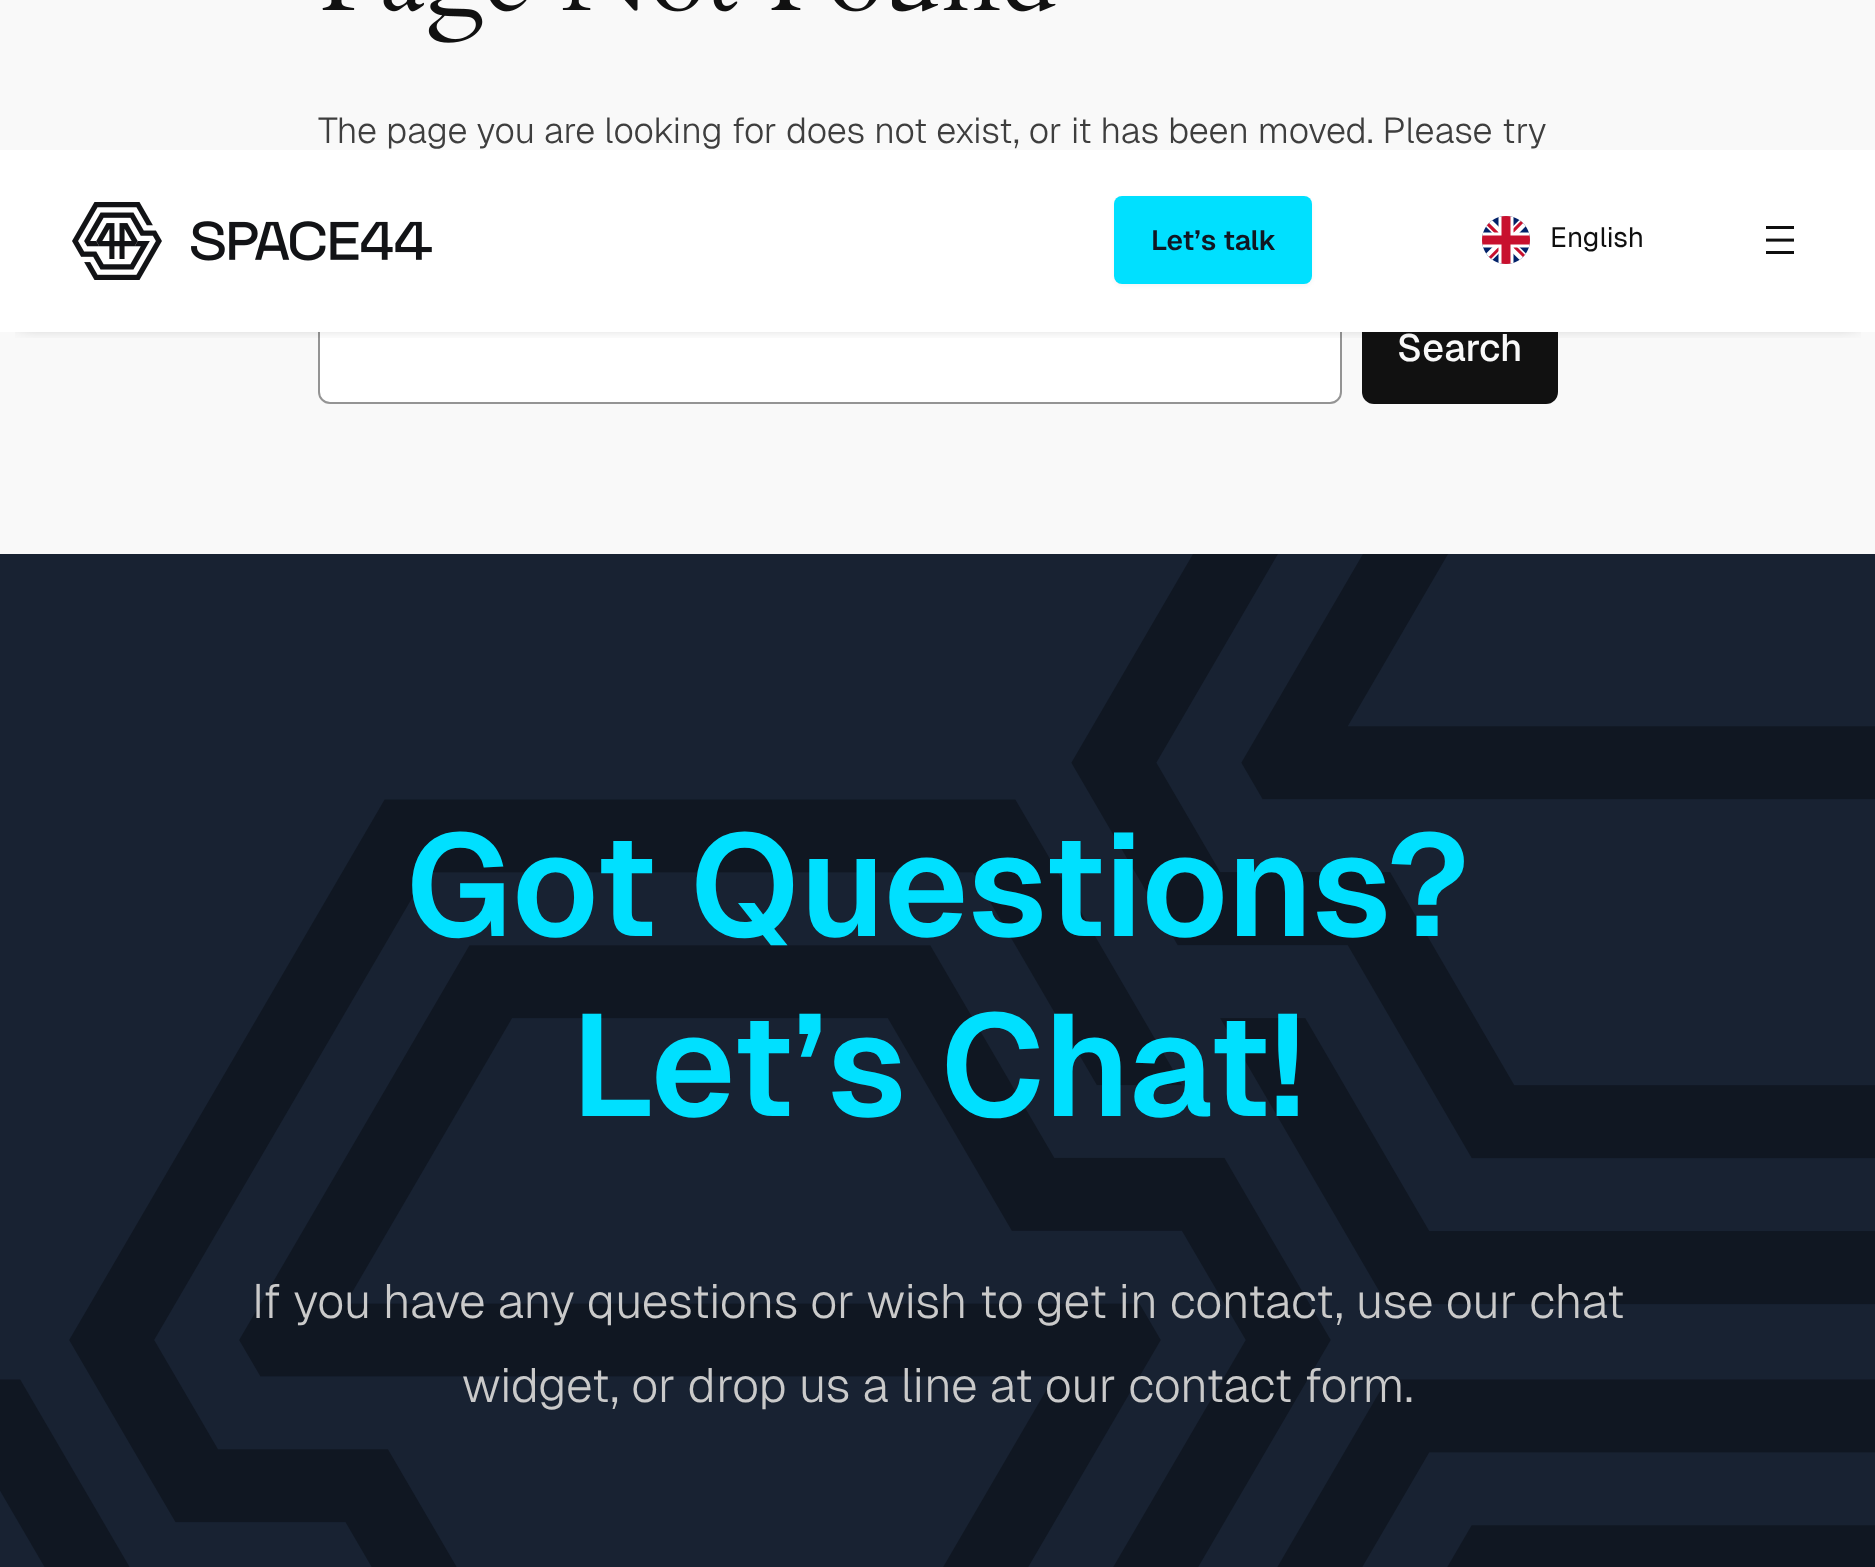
(async () => {
    const canvas = document.querySelector("canvas");
    canvas.width = 1875;
    canvas.height = 1567;
    const context = canvas.getContext("2d");
    context.miterLimit = 4;
    context.fontKerning = "normal";
    function write(s, x, y, font, color) {
        context.font = font;
        context.fillStyle = color;
        context.fillText(s, x, y);
    }
    function block(x, y, w, h, color) {
        context.fillStyle = color;
        context.fillRect(x, y, w, h);
    }
    function card(x, y, w, h, r, color) {
        context.fillStyle = color;
        context.beginPath();
        context.roundRect(x, y, w, h, r);
        context.fill();
    }
    async function photo(src, x, y, w, h) {
        const img = new Image();
        img.src = src;
        await img.decode();
        context.drawImage(img, x, y, w, h);
    }

    block(0, 0, 1875, 1567, "rgb(249, 249, 249)");
    await photo("media/1.png", 322, 0, 734, 43);
    write("The page you are looking for does not exist, or it has been moved. Please try", 318, 143, "300 36px Geist", "rgb(62, 62, 62)");
    context.fillStyle = "rgb(255, 255, 255)";
    context.beginPath();
    context.roundRect(319, 293, 1022, 110, 11);
    context.fill();
    context.strokeStyle = "rgb(148, 148, 148)";
    context.lineWidth = 2;
    context.stroke();
    card(1362, 292, 196, 112, 12, "rgb(17, 17, 17)");
    write("Search", 1397, 361, "500 38px Geist", "rgb(249, 249, 249)");
    block(0, 150, 1875, 182, "rgb(255, 255, 255)");
    context.save();
    context.beginPath();
    context.rect(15, 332, 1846, 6);
    context.clip();
    context.fillStyle = "rgba(0, 0, 0, 0.6)";
    context.filter = "blur(10px)";
    context.beginPath();
    context.rect(20, 178, 1836, 142);
    context.fill();
    context.filter = "none";
    context.restore();
    await photo("media/2.png", 72, 202, 360, 78);
    context.fillStyle = "rgba(16, 24, 40, 0.05)";
    context.filter = "blur(2px)";
    context.beginPath();
    context.roundRect(1114, 198, 198, 88, 8);
    context.fill();
    context.filter = "none";
    card(1114, 196, 198, 88, 8, "rgb(0, 224, 255)");
    write("Let’s talk", 1151, 250, "600 28px Geist", "rgb(16, 23, 34)");
    await photo("media/3.png", 1482, 216, 48, 48);
    write("English", 1550, 247, "28px Geist", "rgb(15, 15, 15)");
    await photo("media/4.png", 1766, 226, 28, 28);
    block(0, 554, 1875, 1013, "rgb(24, 34, 50)");
    await photo("media/5.png", 0, 554, 1875, 1013);
    write("Got Questions?", 406, 936, "600 144px Geist", "rgb(0, 224, 255)");
    write("Let’s Chat!", 571, 1116, "600 144px Geist", "rgb(0, 224, 255)");
    write("If you have any questions or wish to get in contact, use our chat", 252, 1318, "300 48px Geist", "rgb(202, 202, 202)");
    write("widget, or drop us a line at our contact form.", 462, 1402, "300 48px Geist", "rgb(202, 202, 202)");
})();
